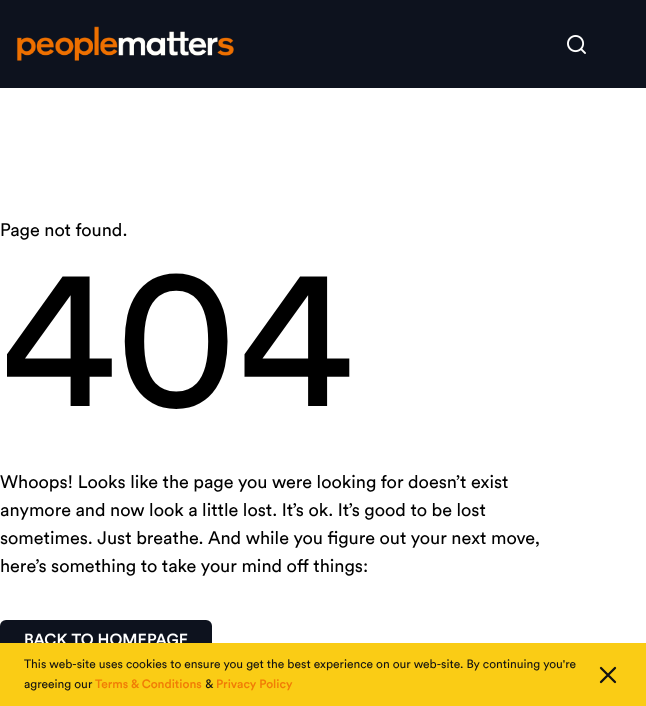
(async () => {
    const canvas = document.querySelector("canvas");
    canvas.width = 646;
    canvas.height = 706;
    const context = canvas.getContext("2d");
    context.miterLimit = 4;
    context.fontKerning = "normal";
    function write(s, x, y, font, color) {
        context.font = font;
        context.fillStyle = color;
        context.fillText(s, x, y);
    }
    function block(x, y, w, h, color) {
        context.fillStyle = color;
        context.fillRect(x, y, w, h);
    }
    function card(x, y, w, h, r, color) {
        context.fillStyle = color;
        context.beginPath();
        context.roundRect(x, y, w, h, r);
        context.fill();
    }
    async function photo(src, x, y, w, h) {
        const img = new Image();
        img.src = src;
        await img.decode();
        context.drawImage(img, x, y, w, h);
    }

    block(0, 0, 646, 706, "rgb(255, 255, 255)");
    block(0, 0, 646, 88, "rgb(13, 18, 30)");
    await photo("media/1.png", 16, 26, 218, 35);
    await photo("media/2.png", 567, 35, 19, 19);
    write("Page not found.", 0, 236, "18px Circular", "rgb(0, 0, 0)");
    write("404", 0, 406, "200px Circular", "rgb(0, 0, 0)");
    write("Whoops! Looks like the page you were looking for doesn’t exist", 0, 488, "18px Circular", "rgb(0, 0, 0)");
    write("anymore and now look a little lost. It’s ok. It’s good to be lost", 0, 516, "18px Circular", "rgb(0, 0, 0)");
    write("sometimes. Just breathe. And while you figure out your next move,", 0, 544, "18px Circular", "rgb(0, 0, 0)");
    write("here’s something to take your mind off things:", 0, 572, "18px Circular", "rgb(0, 0, 0)");
    card(0, 620, 212, 40, 6, "rgb(13, 18, 30)");
    write("BACK TO HOMEPAGE", 24, 645, "500 16px Circular", "rgb(255, 255, 255)");
    block(0, 643, 646, 63, "rgb(250, 204, 21)");
    write("This web-site uses cookies to ensure you get the best experience on our web-site. By continuing you're", 24, 668, "12px Circular", "rgb(18, 18, 18)");
    write("agreeing our", 24, 688, "12px Circular", "rgb(18, 18, 18)");
    write("Terms & Conditions", 95, 688, "500 12px Circular", "rgb(241, 124, 6)");
    write("&", 205, 688, "12px Circular", "rgb(18, 18, 18)");
    write("Privacy Policy", 216, 688, "500 12px Circular", "rgb(241, 124, 6)");
    context.beginPath();
    context.moveTo(615, 668);
    context.lineTo(601, 682);
    context.moveTo(601, 668);
    context.lineTo(615, 682);
    context.strokeStyle = "rgb(18, 18, 18)";
    context.lineWidth = 2.3;
    context.lineCap = "round";
    context.lineJoin = "round";
    context.stroke();
})();
